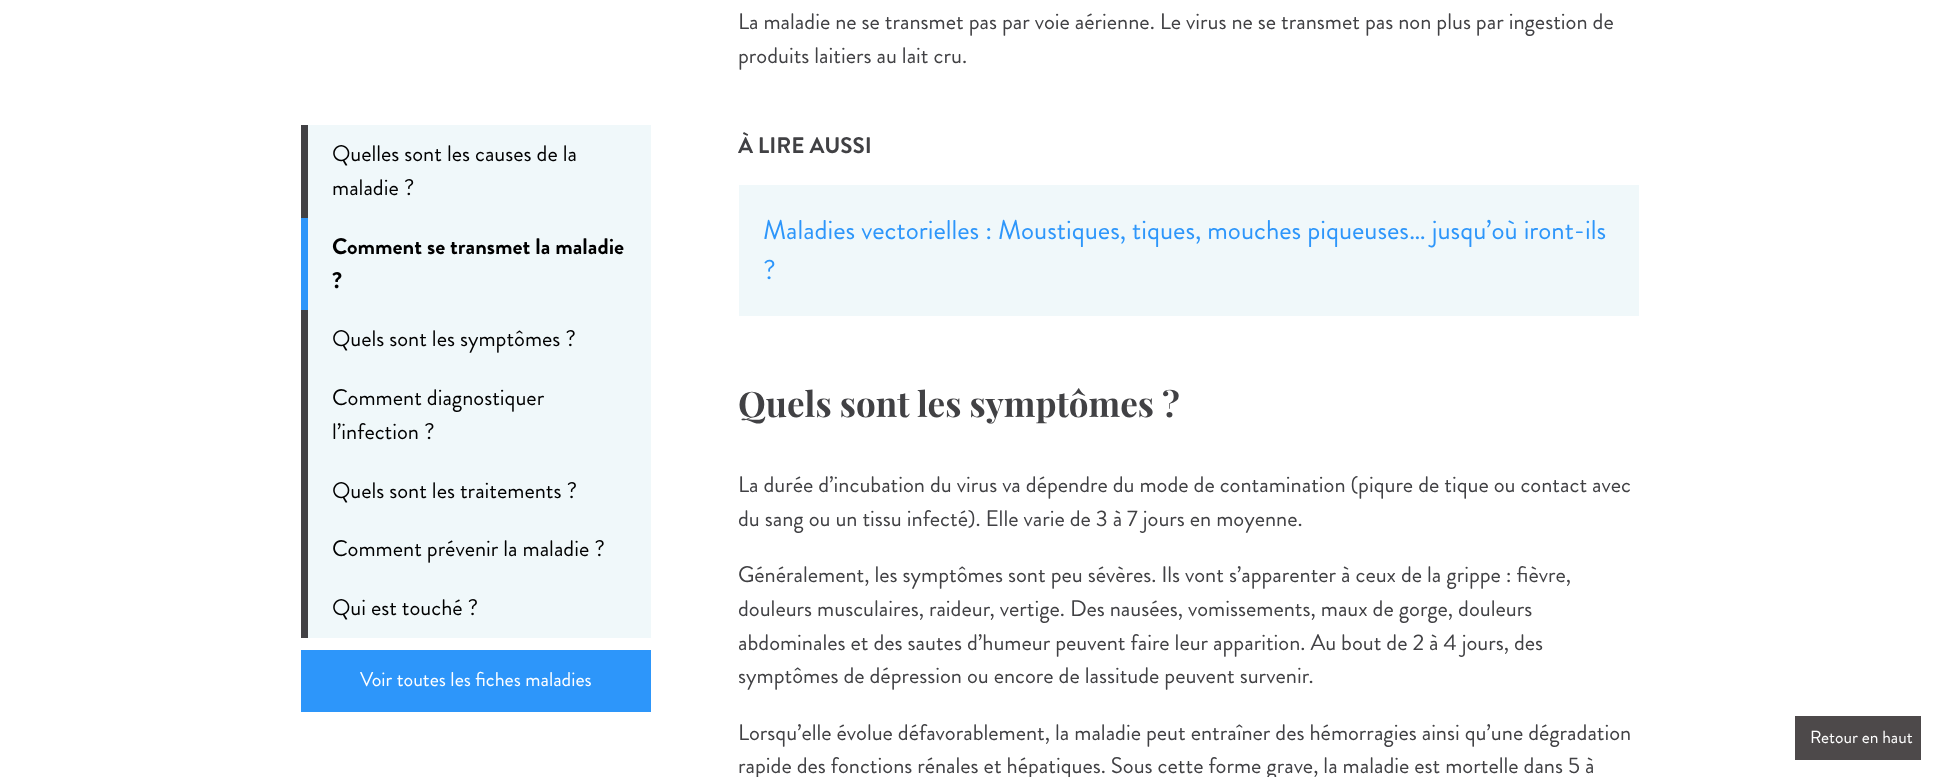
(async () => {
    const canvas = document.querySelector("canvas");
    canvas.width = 1938;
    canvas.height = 777;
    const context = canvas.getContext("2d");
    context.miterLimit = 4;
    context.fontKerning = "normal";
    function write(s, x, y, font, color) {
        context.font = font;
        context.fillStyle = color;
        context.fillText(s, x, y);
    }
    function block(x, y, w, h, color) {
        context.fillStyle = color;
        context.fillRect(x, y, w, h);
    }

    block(0, 0, 1938, 777, "rgb(255, 255, 255)");
    block(301, 650, 350, 62, "rgb(45, 150, 250)");
    block(308, 125, 343, 513, "rgb(240, 248, 250)");
    block(301, 125, 7, 93, "rgb(65, 65, 68)");
    write("Quelles sont les causes de la", 332, 161, "22.5px Brandon Grotesque", "rgb(0, 0, 0)");
    write("maladie ?", 332, 195, "22.5px Brandon Grotesque", "rgb(0, 0, 0)");
    block(301, 218, 7, 92, "rgb(45, 150, 250)");
    write("Comment se transmet la maladie", 332, 254, "bold 22.5px Brandon Grotesque", "rgb(0, 0, 0)");
    write("?", 332, 288, "bold 22.5px Brandon Grotesque", "rgb(0, 0, 0)");
    block(301, 310, 7, 328, "rgb(65, 65, 68)");
    write("Quels sont les symptômes ?", 332, 346, "22.5px Brandon Grotesque", "rgb(0, 0, 0)");
    write("Comment diagnostiquer", 332, 405, "22.5px Brandon Grotesque", "rgb(0, 0, 0)");
    write("l’infection ?", 332, 439, "22.5px Brandon Grotesque", "rgb(0, 0, 0)");
    write("Quels sont les traitements ?", 332, 498, "22.5px Brandon Grotesque", "rgb(0, 0, 0)");
    write("Comment prévenir la maladie ?", 332, 556, "22.5px Brandon Grotesque", "rgb(0, 0, 0)");
    write("Qui est touché ?", 332, 615, "22.5px Brandon Grotesque", "rgb(0, 0, 0)");
    write("Voir toutes les fiches maladies", 360, 686, "20px Brandon Grotesque", "rgb(255, 255, 255)");
    write("La maladie ne se transmet pas par voie aérienne. Le virus ne se transmet pas non plus par ingestion de", 738, 29, "22.5px Brandon Grotesque", "rgb(65, 65, 68)");
    write("produits laitiers au lait cru.", 738, 63, "22.5px Brandon Grotesque", "rgb(65, 65, 68)");
    write("À LIRE AUSSI", 738, 153, "bold 22.5px Brandon Grotesque", "rgb(65, 65, 68)");
    block(739, 185, 900, 131, "rgb(240, 248, 250)");
    write("Maladies vectorielles : Moustiques, tiques, mouches piqueuses… jusqu’où iront-ils", 763, 239, "27px Brandon Grotesque", "rgb(45, 150, 250)");
    write("?", 763, 279, "27px Brandon Grotesque", "rgb(45, 150, 250)");
    write("Quels sont les symptômes ?", 738, 417, "bold 35px Playfair Display", "rgb(65, 65, 68)");
    write("La durée d’incubation du virus va dépendre du mode de contamination (piqure de tique ou contact avec", 738, 492, "22.5px Brandon Grotesque", "rgb(65, 65, 68)");
    write("du sang ou un tissu infecté). Elle varie de 3 à 7 jours en moyenne.", 738, 526, "22.5px Brandon Grotesque", "rgb(65, 65, 68)");
    write("Généralement, les symptômes sont peu sévères. Ils vont s’apparenter à ceux de la grippe : fièvre,", 738, 582, "22.5px Brandon Grotesque", "rgb(65, 65, 68)");
    write("douleurs musculaires, raideur, vertige. Des nausées, vomissements, maux de gorge, douleurs", 738, 616, "22.5px Brandon Grotesque", "rgb(65, 65, 68)");
    write("abdominales et des sautes d’humeur peuvent faire leur apparition. Au bout de 2 à 4 jours, des", 738, 650, "22.5px Brandon Grotesque", "rgb(65, 65, 68)");
    write("symptômes de dépression ou encore de lassitude peuvent survenir.", 738, 683, "22.5px Brandon Grotesque", "rgb(65, 65, 68)");
    write("Lorsqu’elle évolue défavorablement, la maladie peut entraîner des hémorragies ainsi qu’une dégradation", 738, 740, "22.5px Brandon Grotesque", "rgb(65, 65, 68)");
    write("rapide des fonctions rénales et hépatiques. Sous cette forme grave, la maladie est mortelle dans 5 à", 738, 773, "22.5px Brandon Grotesque", "rgb(65, 65, 68)");
    block(1795, 716, 126, 44, "rgb(77, 73, 74)");
    write("Retour en haut", 1810, 743, "17.5px Brandon Grotesque", "rgb(255, 255, 255)");
})();
